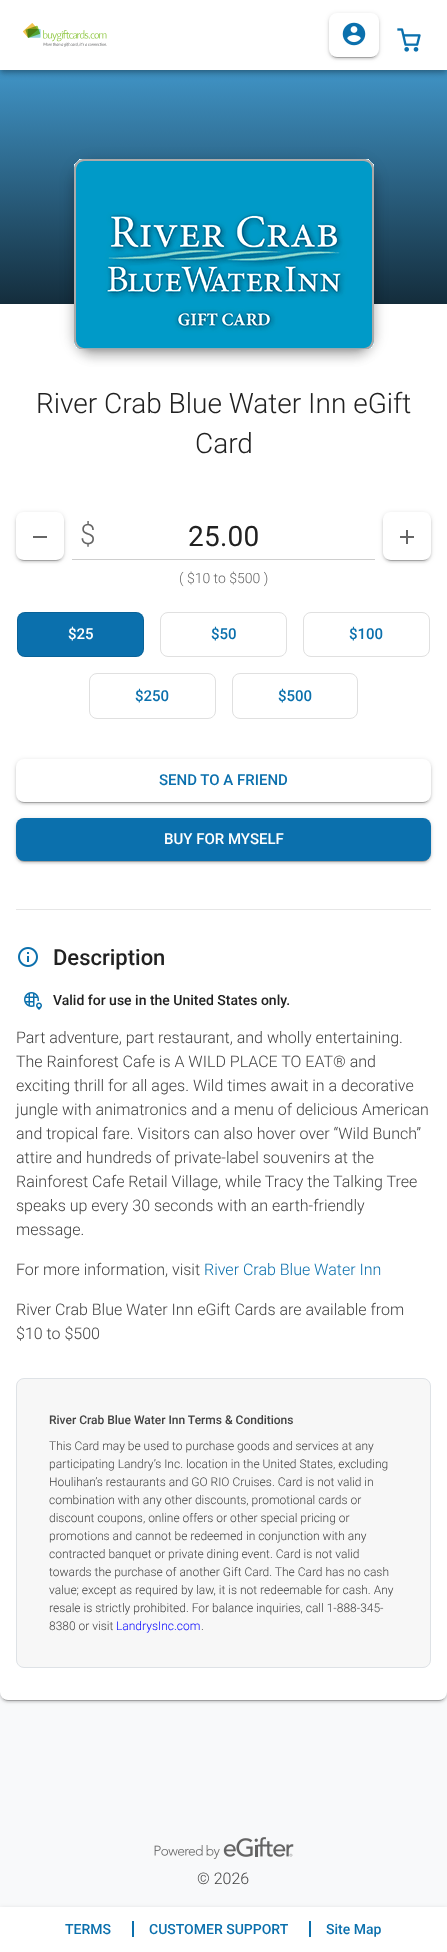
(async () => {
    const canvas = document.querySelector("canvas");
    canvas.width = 447;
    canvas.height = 1952;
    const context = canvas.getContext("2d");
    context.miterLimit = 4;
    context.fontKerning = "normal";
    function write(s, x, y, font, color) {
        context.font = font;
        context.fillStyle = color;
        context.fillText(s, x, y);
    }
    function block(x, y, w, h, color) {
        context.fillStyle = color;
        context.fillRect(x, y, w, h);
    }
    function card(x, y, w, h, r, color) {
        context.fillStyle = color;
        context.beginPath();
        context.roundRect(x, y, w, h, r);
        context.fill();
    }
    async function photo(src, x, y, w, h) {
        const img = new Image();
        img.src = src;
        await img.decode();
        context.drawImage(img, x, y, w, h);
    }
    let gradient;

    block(0, 0, 447, 1952, "rgb(248, 249, 250)");
    gradient = context.createLinearGradient(223, 64, 224, 304);
    gradient.addColorStop(0, "rgb(65, 150, 201)");
    gradient.addColorStop(1, "rgb(20, 45, 60)");
    context.fillStyle = gradient;
    context.fillRect(0, 70, 447, 234);
    context.fillStyle = "rgba(0, 0, 0, 0.12)";
    context.filter = "blur(5px)";
    context.beginPath();
    context.rect(0, 1, 447, 70);
    context.fill();
    context.filter = "none";
    context.fillStyle = "rgba(0, 0, 0, 0.14)";
    context.filter = "blur(2.5px)";
    context.beginPath();
    context.rect(0, 4, 447, 70);
    context.fill();
    context.filter = "none";
    context.fillStyle = "rgba(0, 0, 0, 0.2)";
    context.filter = "blur(2px)";
    context.beginPath();
    context.rect(1, 3, 445, 68);
    context.fill();
    context.filter = "none";
    block(0, 0, 447, 70, "rgb(255, 255, 255)");
    await photo("media/1.png", 23, 23, 84, 24);
    context.fillStyle = "rgba(0, 0, 0, 0.12)";
    context.filter = "blur(2.5px)";
    context.beginPath();
    context.roundRect(329, 14, 50, 44, 8);
    context.fill();
    context.filter = "none";
    context.fillStyle = "rgba(0, 0, 0, 0.14)";
    context.filter = "blur(1px)";
    context.beginPath();
    context.roundRect(329, 15, 50, 44, 8);
    context.fill();
    context.filter = "none";
    context.fillStyle = "rgba(0, 0, 0, 0.2)";
    context.filter = "blur(0.5px)";
    context.beginPath();
    context.roundRect(331, 18, 46, 40, 6);
    context.fill();
    context.filter = "none";
    card(329, 13, 50, 44, 8, "rgb(255, 255, 255)");
    await photo("media/2.png", 342, 22, 24, 24);
    await photo("media/3.png", 397, 28, 24, 24);
    context.fillStyle = "rgba(0, 0, 0, 0.12)";
    context.filter = "blur(2.5px)";
    context.beginPath();
    context.roundRect(0, 305, 447, 1396, 8);
    context.fill();
    context.filter = "none";
    context.fillStyle = "rgba(0, 0, 0, 0.14)";
    context.filter = "blur(1px)";
    context.beginPath();
    context.roundRect(0, 306, 447, 1396, 8);
    context.fill();
    context.filter = "none";
    context.fillStyle = "rgba(0, 0, 0, 0.2)";
    context.filter = "blur(0.5px)";
    context.beginPath();
    context.roundRect(2, 309, 443, 1392, 6);
    context.fill();
    context.filter = "none";
    context.fillStyle = "rgb(255, 255, 255)";
    context.beginPath();
    context.roundRect(0, 304, 447, 1396, [0, 0, 8, 8]);
    context.fill();
    context.fillStyle = "rgba(0, 0, 0, 0.12)";
    context.filter = "blur(7px)";
    context.beginPath();
    context.roundRect(72, 160, 304, 194, 22);
    context.fill();
    context.filter = "none";
    context.fillStyle = "rgba(0, 0, 0, 0.14)";
    context.filter = "blur(5px)";
    context.beginPath();
    context.roundRect(73, 166, 302, 192, 21);
    context.fill();
    context.filter = "none";
    context.fillStyle = "rgba(0, 0, 0, 0.2)";
    context.filter = "blur(2.5px)";
    context.beginPath();
    context.roundRect(77, 167, 294, 184, 17);
    context.fill();
    context.filter = "none";
    await photo("media/4.png", 74, 159, 300, 190);
    write("River Crab Blue Water Inn eGift", 36, 413, "300 28px Roboto", "rgb(33, 33, 33)");
    write("Card", 195, 453, "300 28px Roboto", "rgb(33, 33, 33)");
    context.save();
    context.beginPath();
    context.moveTo(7, 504);
    context.lineTo(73, 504);
    context.lineTo(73, 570);
    context.lineTo(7, 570);
    context.closePath();
    context.moveTo(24, 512);
    context.lineTo(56, 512);
    context.bezierCurveTo(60.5, 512, 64, 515.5, 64, 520);
    context.lineTo(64, 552);
    context.bezierCurveTo(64, 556.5, 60.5, 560, 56, 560);
    context.lineTo(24, 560);
    context.bezierCurveTo(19.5, 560, 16, 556.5, 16, 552);
    context.lineTo(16, 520);
    context.bezierCurveTo(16, 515.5, 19.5, 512, 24, 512);
    context.closePath();
    context.clip("evenodd");
    context.fillStyle = "rgba(0, 0, 0, 0.12)";
    context.filter = "blur(2.5px)";
    context.beginPath();
    context.roundRect(16, 513, 48, 48, 8);
    context.fill();
    context.filter = "none";
    context.restore();
    context.save();
    context.beginPath();
    context.moveTo(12, 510);
    context.lineTo(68, 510);
    context.lineTo(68, 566);
    context.lineTo(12, 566);
    context.closePath();
    context.moveTo(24, 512);
    context.lineTo(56, 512);
    context.bezierCurveTo(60.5, 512, 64, 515.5, 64, 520);
    context.lineTo(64, 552);
    context.bezierCurveTo(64, 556.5, 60.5, 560, 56, 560);
    context.lineTo(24, 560);
    context.bezierCurveTo(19.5, 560, 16, 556.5, 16, 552);
    context.lineTo(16, 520);
    context.bezierCurveTo(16, 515.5, 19.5, 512, 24, 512);
    context.closePath();
    context.clip("evenodd");
    context.fillStyle = "rgba(0, 0, 0, 0.14)";
    context.filter = "blur(1px)";
    context.beginPath();
    context.roundRect(16, 514, 48, 48, 8);
    context.fill();
    context.filter = "none";
    context.restore();
    context.save();
    context.beginPath();
    context.moveTo(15, 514);
    context.lineTo(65, 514);
    context.lineTo(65, 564);
    context.lineTo(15, 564);
    context.closePath();
    context.moveTo(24, 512);
    context.lineTo(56, 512);
    context.bezierCurveTo(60.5, 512, 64, 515.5, 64, 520);
    context.lineTo(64, 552);
    context.bezierCurveTo(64, 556.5, 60.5, 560, 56, 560);
    context.lineTo(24, 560);
    context.bezierCurveTo(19.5, 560, 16, 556.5, 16, 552);
    context.lineTo(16, 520);
    context.bezierCurveTo(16, 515.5, 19.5, 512, 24, 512);
    context.closePath();
    context.clip("evenodd");
    context.fillStyle = "rgba(0, 0, 0, 0.2)";
    context.filter = "blur(0.5px)";
    context.beginPath();
    context.roundRect(18, 517, 44, 44, 6);
    context.fill();
    context.filter = "none";
    context.restore();
    block(33, 536, 14, 2, "rgb(102, 102, 102)");
    write("$", 80, 544, "300 28px Roboto", "rgb(102, 102, 102)");
    context.letterSpacing = "0.25px";
    write("25.00", 188, 546, "28px Roboto", "rgb(33, 33, 33)");
    block(72, 559, 303, 1, "rgb(206, 206, 206)");
    context.save();
    context.beginPath();
    context.moveTo(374, 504);
    context.lineTo(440, 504);
    context.lineTo(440, 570);
    context.lineTo(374, 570);
    context.closePath();
    context.moveTo(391, 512);
    context.lineTo(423, 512);
    context.bezierCurveTo(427.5, 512, 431, 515.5, 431, 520);
    context.lineTo(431, 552);
    context.bezierCurveTo(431, 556.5, 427.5, 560, 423, 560);
    context.lineTo(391, 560);
    context.bezierCurveTo(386.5, 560, 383, 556.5, 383, 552);
    context.lineTo(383, 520);
    context.bezierCurveTo(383, 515.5, 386.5, 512, 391, 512);
    context.closePath();
    context.clip("evenodd");
    context.fillStyle = "rgba(0, 0, 0, 0.12)";
    context.filter = "blur(2.5px)";
    context.beginPath();
    context.roundRect(383, 513, 48, 48, 8);
    context.fill();
    context.filter = "none";
    context.restore();
    context.save();
    context.beginPath();
    context.moveTo(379, 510);
    context.lineTo(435, 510);
    context.lineTo(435, 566);
    context.lineTo(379, 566);
    context.closePath();
    context.moveTo(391, 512);
    context.lineTo(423, 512);
    context.bezierCurveTo(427.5, 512, 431, 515.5, 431, 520);
    context.lineTo(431, 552);
    context.bezierCurveTo(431, 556.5, 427.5, 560, 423, 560);
    context.lineTo(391, 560);
    context.bezierCurveTo(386.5, 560, 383, 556.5, 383, 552);
    context.lineTo(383, 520);
    context.bezierCurveTo(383, 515.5, 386.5, 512, 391, 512);
    context.closePath();
    context.clip("evenodd");
    context.fillStyle = "rgba(0, 0, 0, 0.14)";
    context.filter = "blur(1px)";
    context.beginPath();
    context.roundRect(383, 514, 48, 48, 8);
    context.fill();
    context.filter = "none";
    context.restore();
    context.save();
    context.beginPath();
    context.moveTo(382, 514);
    context.lineTo(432, 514);
    context.lineTo(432, 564);
    context.lineTo(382, 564);
    context.closePath();
    context.moveTo(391, 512);
    context.lineTo(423, 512);
    context.bezierCurveTo(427.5, 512, 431, 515.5, 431, 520);
    context.lineTo(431, 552);
    context.bezierCurveTo(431, 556.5, 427.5, 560, 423, 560);
    context.lineTo(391, 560);
    context.bezierCurveTo(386.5, 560, 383, 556.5, 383, 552);
    context.lineTo(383, 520);
    context.bezierCurveTo(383, 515.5, 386.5, 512, 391, 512);
    context.closePath();
    context.clip("evenodd");
    context.fillStyle = "rgba(0, 0, 0, 0.2)";
    context.filter = "blur(0.5px)";
    context.beginPath();
    context.roundRect(385, 517, 44, 44, 6);
    context.fill();
    context.filter = "none";
    context.restore();
    await photo("media/5.png", 400, 530, 14, 14);
    context.letterSpacing = "0px";
    write("( $10 to $500 )", 179, 583, "300 14px Roboto", "rgb(102, 102, 102)");
    card(17, 612, 127, 45, 8, "rgb(11, 112, 173)");
    context.beginPath();
    context.roundRect(17.5, 612.5, 126, 44, 7.5);
    context.strokeStyle = "rgba(0, 0, 0, 0.12)";
    context.stroke();
    write("$25", 68, 639, "500 15px Roboto", "rgb(255, 255, 255)");
    context.beginPath();
    context.roundRect(160.5, 612.5, 126, 44, 7.5);
    context.strokeStyle = "rgb(224, 224, 224)";
    context.stroke();
    write("$50", 211, 639, "500 15px Roboto", "rgb(11, 112, 173)");
    context.beginPath();
    context.roundRect(303.5, 612.5, 126, 44, 7.5);
    context.stroke();
    write("$100", 349, 639, "500 15px Roboto", "rgb(11, 112, 173)");
    context.beginPath();
    context.roundRect(89.5, 673.5, 126, 45, 7.5);
    context.stroke();
    write("$250", 135, 701, "500 15px Roboto", "rgb(11, 112, 173)");
    context.beginPath();
    context.roundRect(232.5, 673.5, 125, 45, 7.5);
    context.stroke();
    write("$500", 278, 701, "500 15px Roboto", "rgb(11, 112, 173)");
    context.fillStyle = "rgba(0, 0, 0, 0.12)";
    context.filter = "blur(2.5px)";
    context.beginPath();
    context.roundRect(16, 760, 415, 43, 8);
    context.fill();
    context.filter = "none";
    context.fillStyle = "rgba(0, 0, 0, 0.14)";
    context.filter = "blur(1px)";
    context.beginPath();
    context.roundRect(16, 761, 415, 43, 8);
    context.fill();
    context.filter = "none";
    context.fillStyle = "rgba(0, 0, 0, 0.2)";
    context.filter = "blur(0.5px)";
    context.beginPath();
    context.roundRect(18, 764, 411, 39, 6);
    context.fill();
    context.filter = "none";
    card(16, 759, 415, 43, 8, "rgb(255, 255, 255)");
    write("SEND TO A FRIEND", 159, 785, "500 15px Roboto", "rgb(11, 112, 173)");
    context.fillStyle = "rgba(0, 0, 0, 0.12)";
    context.filter = "blur(2.5px)";
    context.beginPath();
    context.roundRect(16, 819, 415, 43, 8);
    context.fill();
    context.filter = "none";
    context.fillStyle = "rgba(0, 0, 0, 0.14)";
    context.filter = "blur(1px)";
    context.beginPath();
    context.roundRect(16, 820, 415, 43, 8);
    context.fill();
    context.filter = "none";
    context.fillStyle = "rgba(0, 0, 0, 0.2)";
    context.filter = "blur(0.5px)";
    context.beginPath();
    context.roundRect(18, 823, 411, 39, 6);
    context.fill();
    context.filter = "none";
    card(16, 818, 415, 43, 8, "rgb(11, 112, 173)");
    write("BUY FOR MYSELF", 164, 844, "500 15px Roboto", "rgb(255, 255, 255)");
    block(16, 909, 415, 1, "rgb(230, 230, 230)");
    await photo("media/6.png", 18, 947, 20, 20);
    write("Description", 53, 965, "500 22px Roboto", "rgb(33, 33, 33)");
    await photo("media/7.png", 24, 992, 18, 18);
    write("Valid for use in the United States only.", 53, 1005, "500 14px Roboto", "rgb(33, 33, 33)");
    write("Part adventure, part restaurant, and wholly entertaining.", 16, 1043, "300 16px Roboto", "rgb(66, 66, 66)");
    write("The Rainforest Cafe is A WILD PLACE TO EAT® and", 16, 1067, "300 16px Roboto", "rgb(66, 66, 66)");
    write("exciting thrill for all ages. Wild times await in a decorative", 16, 1091, "300 16px Roboto", "rgb(66, 66, 66)");
    write("jungle with animatronics and a menu of delicious American", 16, 1115, "300 16px Roboto", "rgb(66, 66, 66)");
    write("and tropical fare. Visitors can also hover over “Wild Bunch”", 16, 1139, "300 16px Roboto", "rgb(66, 66, 66)");
    write("attire and hundreds of private-label souvenirs at the", 16, 1163, "300 16px Roboto", "rgb(66, 66, 66)");
    write("Rainforest Cafe Retail Village, while Tracy the Talking Tree", 16, 1187, "300 16px Roboto", "rgb(66, 66, 66)");
    write("speaks up every 30 seconds with an earth-friendly", 16, 1211, "300 16px Roboto", "rgb(66, 66, 66)");
    write("message.", 16, 1235, "300 16px Roboto", "rgb(66, 66, 66)");
    write("For more information, visit", 16, 1275, "300 16px Roboto", "rgb(66, 66, 66)");
    write("River Crab Blue Water Inn", 204, 1275, "300 16px Roboto", "rgb(11, 112, 173)");
    write("River Crab Blue Water Inn eGift Cards are available from", 16, 1315, "300 16px Roboto", "rgb(66, 66, 66)");
    write("$10 to $500", 16, 1339, "300 16px Roboto", "rgb(66, 66, 66)");
    context.fillStyle = "rgb(247, 247, 247)";
    context.beginPath();
    context.roundRect(16.5, 1378.5, 414, 289, 7.5);
    context.fill();
    context.strokeStyle = "rgb(222, 226, 230)";
    context.stroke();
    write("River Crab Blue Water Inn Terms & Conditions", 49, 1424, "500 12px Roboto", "rgb(66, 66, 66)");
    write("This Card may be used to purchase goods and services at any", 49, 1450, "300 12px Roboto", "rgb(66, 66, 66)");
    write("participating Landry’s Inc. location in the United States, excluding", 49, 1468, "300 12px Roboto", "rgb(66, 66, 66)");
    write("Houlihan’s restaurants and GO RIO Cruises. Card is not valid in", 49, 1486, "300 12px Roboto", "rgb(66, 66, 66)");
    write("combination with any other discounts, promotional cards or", 49, 1504, "300 12px Roboto", "rgb(66, 66, 66)");
    write("discount coupons, online offers or other special pricing or", 49, 1522, "300 12px Roboto", "rgb(66, 66, 66)");
    write("promotions and cannot be redeemed in conjunction with any", 49, 1540, "300 12px Roboto", "rgb(66, 66, 66)");
    write("contracted banquet or private dining event. Card is not valid", 49, 1558, "300 12px Roboto", "rgb(66, 66, 66)");
    write("towards the purchase of another Gift Card. The Card has no cash", 49, 1576, "300 12px Roboto", "rgb(66, 66, 66)");
    write("value; except as required by law, it is not redeemable for cash. Any", 49, 1594, "300 12px Roboto", "rgb(66, 66, 66)");
    write("resale is strictly prohibited. For balance inquiries, call 1-888-345-", 49, 1612, "300 12px Roboto", "rgb(66, 66, 66)");
    write("8380 or visit", 49, 1630, "300 12px Roboto", "rgb(66, 66, 66)");
    write("LandrysInc.com", 116, 1630, "300 12px Roboto", "rgb(0, 0, 255)");
    write(".", 201, 1630, "300 12px Roboto", "rgb(66, 66, 66)");
    await photo("media/8.png", 154, 1837, 140, 22);
    write("© 2026", 197, 1884, "300 16px Roboto", "rgb(66, 66, 66)");
    context.fillStyle = "rgba(0, 0, 0, 0.12)";
    context.filter = "blur(2.5px)";
    context.beginPath();
    context.rect(0, 1908, 447, 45);
    context.fill();
    context.filter = "none";
    block(0, 1907, 447, 45, "rgb(255, 255, 255)");
    write("TERMS", 65, 1934, "500 14px Roboto", "rgb(11, 112, 173)");
    block(132, 1921, 2, 16, "rgb(11, 112, 173)");
    write("CUSTOMER SUPPORT", 149, 1934, "500 14px Roboto", "rgb(11, 112, 173)");
    block(309, 1921, 2, 16, "rgb(11, 112, 173)");
    write("Site Map", 326, 1934, "500 14px Roboto", "rgb(11, 112, 173)");
})();
